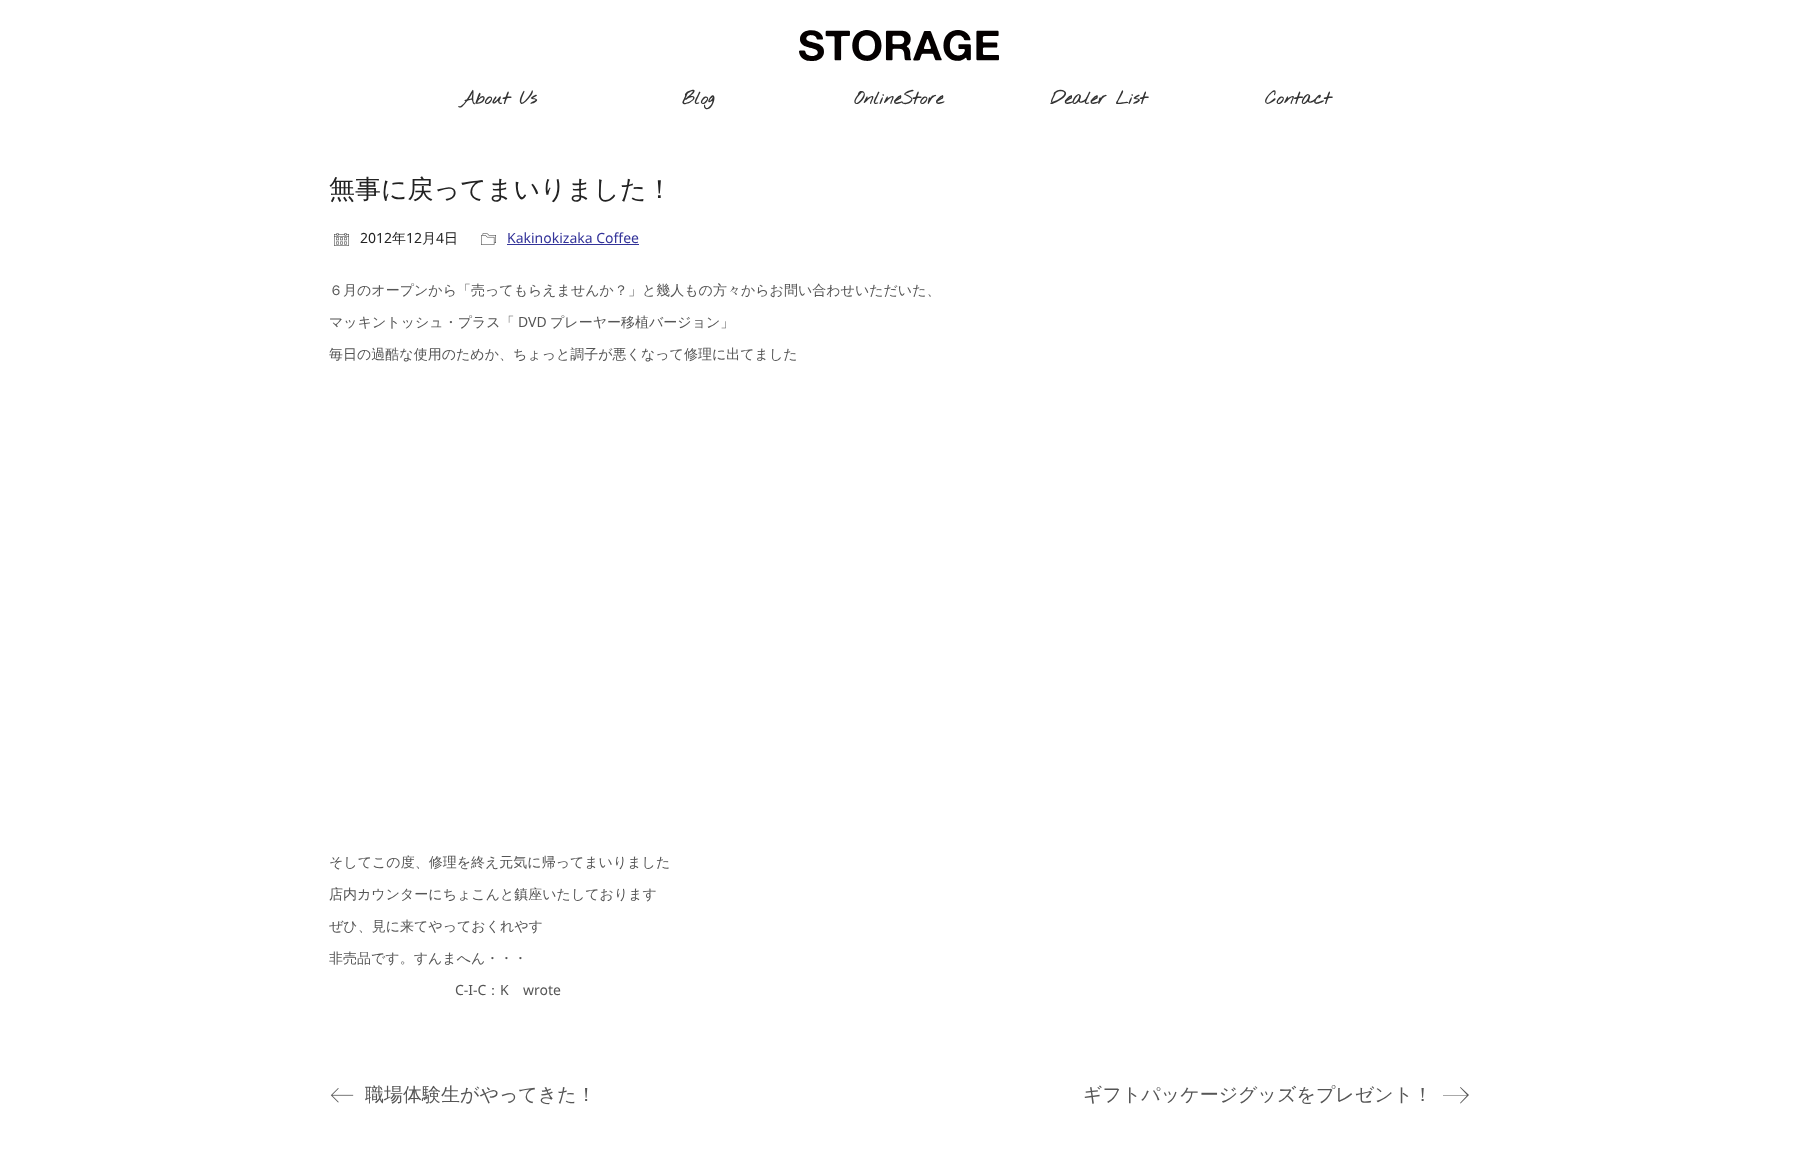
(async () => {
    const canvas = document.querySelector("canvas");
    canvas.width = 1797;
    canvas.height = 1155;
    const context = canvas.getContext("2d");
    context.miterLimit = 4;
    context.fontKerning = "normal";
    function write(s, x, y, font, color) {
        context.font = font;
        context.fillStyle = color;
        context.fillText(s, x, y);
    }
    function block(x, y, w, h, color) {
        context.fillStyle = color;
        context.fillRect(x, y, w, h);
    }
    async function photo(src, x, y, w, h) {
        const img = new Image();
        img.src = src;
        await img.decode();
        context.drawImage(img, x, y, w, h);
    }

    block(0, 0, 1797, 1155, "rgb(255, 255, 255)");
    await photo("media/1.png", 799, 30, 200, 31);
    write("About Us", 460, 104, "bold 18px Nothing You Could Do", "rgb(51, 51, 51)");
    write("Blog", 682, 104, "bold 18px Nothing You Could Do", "rgb(51, 51, 51)");
    write("OnlineStore", 854, 104, "bold 18px Nothing You Could Do", "rgb(51, 51, 51)");
    write("Dealer List", 1050, 104, "bold 18px Nothing You Could Do", "rgb(51, 51, 51)");
    write("Contact", 1265, 104, "bold 18px Nothing You Could Do", "rgb(51, 51, 51)");
    write("無事に戻ってまいりました！", 329, 198, "500 26px WenQuanYi Zen Hei", "rgb(34, 34, 34)");
    await photo("media/2.png", 334, 233, 15, 13);
    write("2012", 360, 243, "14px Noto Sans Javanese", "rgb(34, 34, 34)");
    write("年", 392, 243, "500 14px WenQuanYi Zen Hei", "rgb(34, 34, 34)");
    write("12", 406, 243, "14px Noto Sans Javanese", "rgb(34, 34, 34)");
    write("月", 422, 243, "500 14px WenQuanYi Zen Hei", "rgb(34, 34, 34)");
    write("4", 436, 243, "14px Noto Sans Javanese", "rgb(34, 34, 34)");
    write("日", 444, 243, "500 14px WenQuanYi Zen Hei", "rgb(34, 34, 34)");
    await photo("media/3.png", 481, 233, 15, 12);
    write("Kakinokizaka Coffee", 507, 243, "14px Noto Sans Javanese", "rgb(51, 51, 153)");
    block(507, 244, 132, 1, "rgb(51, 51, 153)");
    write("６月のオープンから「売ってもらえませんか？」と幾人もの方々からお問い合わせいただいた、", 329, 295, "500 14px WenQuanYi Zen Hei", "rgb(85, 85, 85)");
    write("マッキントッシュ・プラス「", 329, 327, "500 14px WenQuanYi Zen Hei", "rgb(85, 85, 85)");
    write("DVD", 518, 327, "14px Noto Sans Javanese", "rgb(85, 85, 85)");
    write("プレーヤー移植バージョン」", 550, 327, "500 14px WenQuanYi Zen Hei", "rgb(85, 85, 85)");
    write("毎日の過酷な使用のためか、ちょっと調子が悪くなって修理に出てました", 329, 359, "500 14px WenQuanYi Zen Hei", "rgb(85, 85, 85)");
    write("そしてこの度、修理を終え元気に帰ってまいりました", 329, 867, "500 14px WenQuanYi Zen Hei", "rgb(85, 85, 85)");
    write("店内カウンターにちょこんと鎮座いたしております", 329, 899, "500 14px WenQuanYi Zen Hei", "rgb(85, 85, 85)");
    write("ぜひ、見に来てやっておくれやす", 329, 931, "500 14px WenQuanYi Zen Hei", "rgb(85, 85, 85)");
    write("非売品です。すんまへん・・・", 329, 963, "500 14px WenQuanYi Zen Hei", "rgb(85, 85, 85)");
    write("C-I-C", 455, 995, "14px Noto Sans Javanese", "rgb(85, 85, 85)");
    write("：", 486, 995, "500 14px WenQuanYi Zen Hei", "rgb(85, 85, 85)");
    write("K", 500, 995, "14px Noto Sans Javanese", "rgb(85, 85, 85)");
    write("wrote", 523, 995, "14px Noto Sans Javanese", "rgb(85, 85, 85)");
    await photo("media/4.png", 330, 1088, 24, 15);
    context.save();
    context.beginPath();
    context.rect(365, 1084, 230, 30);
    context.clip();
    write("職場体験生がやってきた！", 365, 1101, "500 19px WenQuanYi Zen Hei", "rgb(85, 85, 85)");
    context.restore();
    write("ギフトパッケージグッズをプレゼント！", 1083, 1101, "500 19px WenQuanYi Zen Hei", "rgb(85, 85, 85)");
    context.beginPath();
    context.moveTo(1460.5, 1087);
    context.lineTo(1460, 1087.5);
    context.lineTo(1467, 1095);
    context.lineTo(1443, 1095);
    context.lineTo(1443, 1095.5);
    context.lineTo(1467, 1095.5);
    context.lineTo(1460, 1103);
    context.lineTo(1460.5, 1103.5);
    context.lineTo(1469, 1095);
    context.closePath();
    context.fill();
})();
